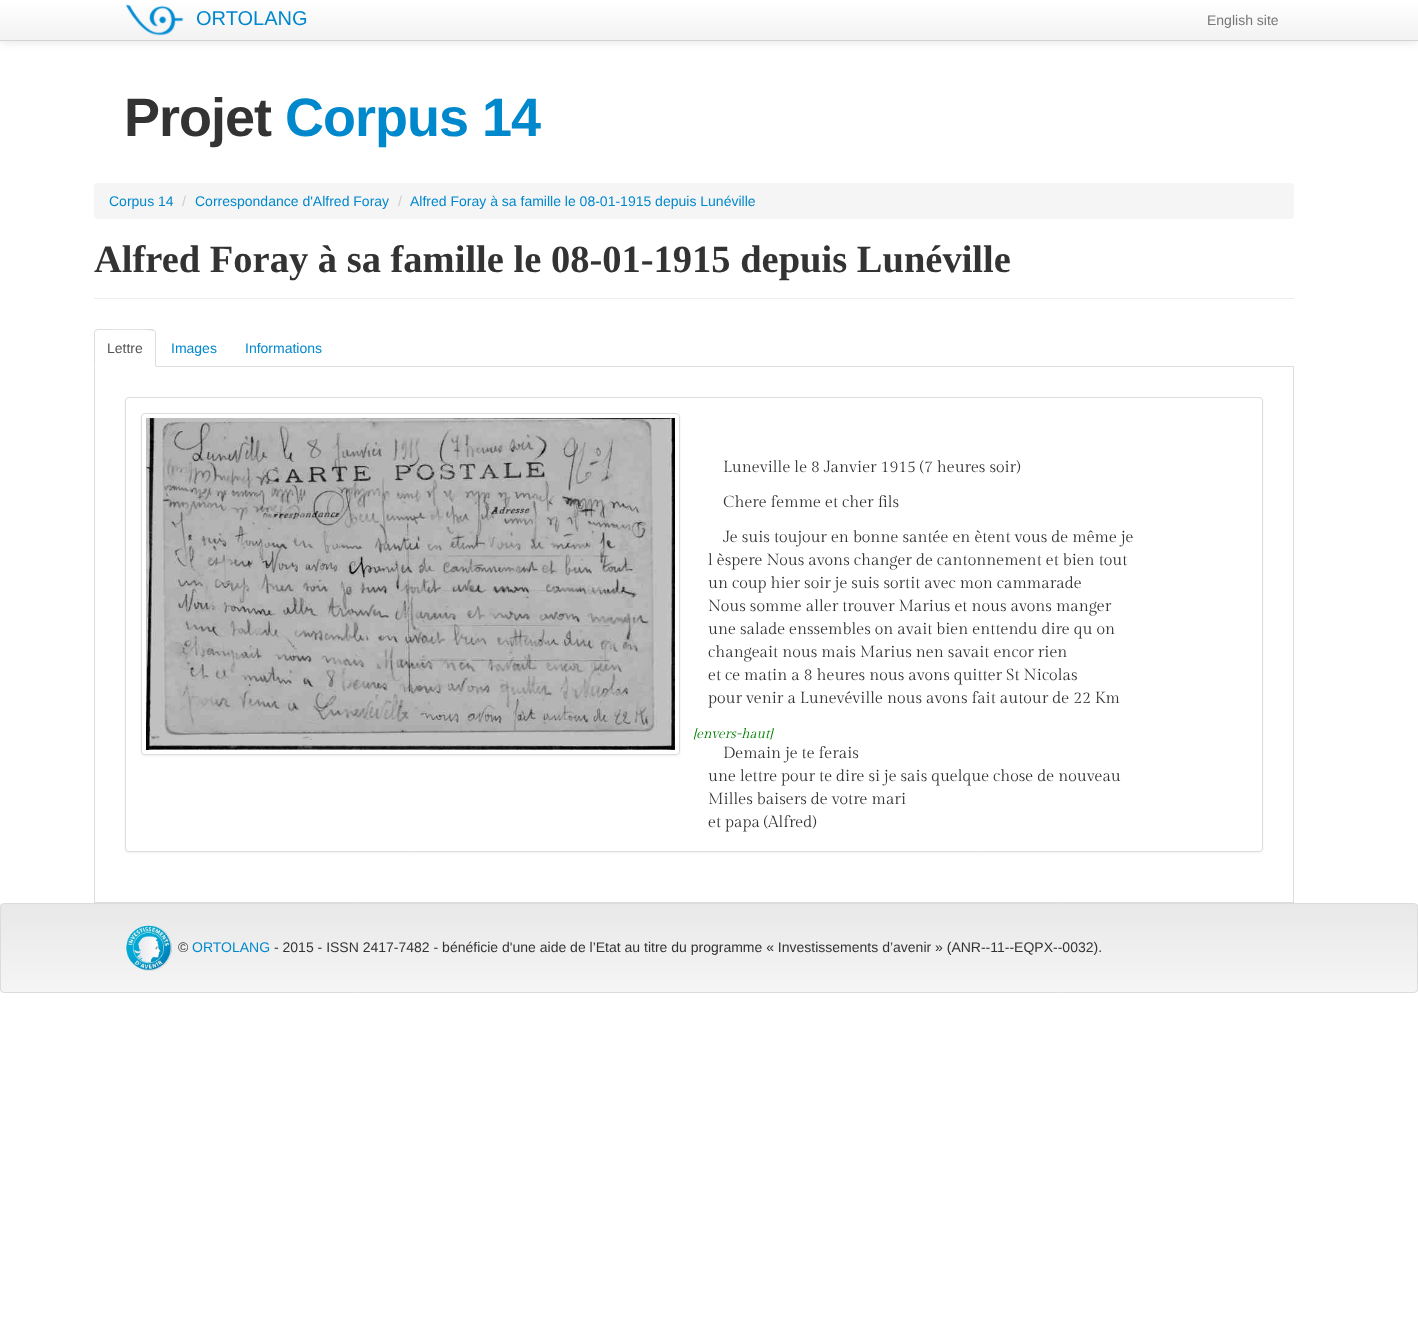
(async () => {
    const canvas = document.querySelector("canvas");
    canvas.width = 1418;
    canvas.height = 1320;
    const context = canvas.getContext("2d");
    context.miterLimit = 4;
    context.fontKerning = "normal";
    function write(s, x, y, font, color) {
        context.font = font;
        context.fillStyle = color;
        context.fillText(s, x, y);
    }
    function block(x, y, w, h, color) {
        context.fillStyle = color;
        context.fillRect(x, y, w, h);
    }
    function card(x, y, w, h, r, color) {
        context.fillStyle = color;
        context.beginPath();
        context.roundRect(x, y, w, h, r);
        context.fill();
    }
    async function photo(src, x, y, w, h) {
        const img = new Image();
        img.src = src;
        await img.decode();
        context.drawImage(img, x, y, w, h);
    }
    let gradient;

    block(0, 0, 1418, 1320, "rgb(255, 255, 255)");
    context.fillStyle = "rgba(0, 0, 0, 0.1)";
    context.filter = "blur(5px)";
    context.beginPath();
    context.rect(0, 1, 1418, 41);
    context.fill();
    context.filter = "none";
    gradient = context.createLinearGradient(709, 0, 709, 40);
    gradient.addColorStop(0, "rgb(255, 255, 255)");
    gradient.addColorStop(1, "rgb(242, 242, 242)");
    context.fillStyle = gradient;
    context.fillRect(0, 0, 1418, 40);
    block(0, 40, 1418, 1, "rgb(212, 212, 212)");
    await photo("media/1.png", 125, 4, 59, 32);
    write("ORTOLANG", 196, 25, "20px Liberation Sans", "rgb(0, 136, 204)");
    write("English site", 1207, 25, "14px Liberation Sans", "rgb(119, 119, 119)");
    context.letterSpacing = "-1px";
    write("Projet", 124, 136, "bold 54px Liberation Sans", "rgb(51, 51, 51)");
    write("Corpus 14", 285, 136, "bold 54px Liberation Sans", "rgb(0, 136, 204)");
    card(94, 183, 1200, 36, 4, "rgb(245, 245, 245)");
    context.letterSpacing = "0px";
    write("Corpus 14", 109, 206, "14px Liberation Sans", "rgb(0, 136, 204)");
    write("/", 182, 206, "14px Liberation Sans", "rgb(204, 204, 204)");
    write("Correspondance d'Alfred Foray", 195, 206, "14px Liberation Sans", "rgb(0, 136, 204)");
    write("/", 398, 206, "14px Liberation Sans", "rgb(204, 204, 204)");
    write("Alfred Foray à sa famille le 08-01-1915 depuis Lunéville", 410, 206, "14px Liberation Sans", "rgb(0, 136, 204)");
    block(94, 298, 1200, 1, "rgb(238, 238, 238)");
    write("Alfred Foray à sa famille le 08-01-1915 depuis Lunéville", 94, 272, "bold 38.5px Liberation Serif", "rgb(51, 51, 51)");
    block(156, 366, 1138, 1, "rgb(221, 221, 221)");
    context.beginPath();
    context.moveTo(98, 329);
    context.lineTo(95, 330);
    context.lineTo(96, 331);
    context.lineTo(98, 330);
    context.bezierCurveTo(103, 330, 152, 329, 154, 331);
    context.lineTo(155, 330);
    context.lineTo(152, 329);
    context.closePath();
    context.fill();
    context.beginPath();
    context.moveTo(156, 367);
    context.lineTo(156, 333);
    context.bezierCurveTo(156, 332, 155.5, 331, 155, 330);
    context.lineTo(154, 331);
    context.bezierCurveTo(155, 331, 155, 332, 155, 333);
    context.lineTo(155, 366);
    context.closePath();
    context.moveTo(94, 367);
    context.lineTo(95, 366);
    context.lineTo(95, 333);
    context.bezierCurveTo(95, 332, 95, 331, 96, 331);
    context.lineTo(95, 330);
    context.bezierCurveTo(94.5, 331, 94, 332, 94, 333);
    context.closePath();
    context.fill();
    write("Lettre", 107, 353, "14px Liberation Sans", "rgb(85, 85, 85)");
    write("Images", 171, 353, "14px Liberation Sans", "rgb(0, 136, 204)");
    write("Informations", 245, 353, "14px Liberation Sans", "rgb(0, 136, 204)");
    block(1293, 367, 1, 536, "rgb(221, 221, 221)");
    block(94, 902, 1200, 1, "rgb(221, 221, 221)");
    block(94, 367, 1, 536, "rgb(221, 221, 221)");
    context.fillStyle = "rgba(0, 0, 0, 0.05)";
    context.filter = "blur(1px)";
    context.beginPath();
    context.roundRect(125, 398, 1138, 455, 4);
    context.fill();
    context.filter = "none";
    context.fillStyle = "rgb(255, 255, 255)";
    context.beginPath();
    context.roundRect(125.5, 397.5, 1137, 454, 3.5);
    context.fill();
    context.strokeStyle = "rgb(221, 221, 221)";
    context.stroke();
    context.save();
    context.beginPath();
    context.moveTo(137, 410);
    context.lineTo(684, 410);
    context.lineTo(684, 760);
    context.lineTo(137, 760);
    context.closePath();
    context.moveTo(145, 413);
    context.lineTo(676, 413);
    context.bezierCurveTo(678, 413, 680, 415, 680, 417);
    context.lineTo(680, 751);
    context.bezierCurveTo(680, 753, 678, 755, 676, 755);
    context.lineTo(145, 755);
    context.bezierCurveTo(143, 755, 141, 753, 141, 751);
    context.lineTo(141, 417);
    context.bezierCurveTo(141, 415, 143, 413, 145, 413);
    context.closePath();
    context.clip("evenodd");
    context.fillStyle = "rgba(0, 0, 0, 0.07)";
    context.filter = "blur(1px)";
    context.beginPath();
    context.roundRect(141, 414, 539, 342, 4);
    context.fill();
    context.filter = "none";
    context.restore();
    context.beginPath();
    context.roundRect(141.5, 413.5, 538, 341, 3.5);
    context.stroke();
    await photo("media/2.png", 146, 418, 529, 332);
    write("Luneville le 8 Janvier 1915 (7 heures soir)", 723, 472, "16px Gilda Display", "rgb(51, 51, 51)");
    write("Chere femme et cher fils", 723, 507, "16px Gilda Display", "rgb(51, 51, 51)");
    write("Je suis toujour en bonne santée en ètent vous de même je", 723, 542, "16px Gilda Display", "rgb(51, 51, 51)");
    write("l èspere Nous avons changer de cantonnement et bien tout", 708, 565, "16px Gilda Display", "rgb(51, 51, 51)");
    write("un coup hier soir je suis sortit avec mon cammarade", 708, 588, "16px Gilda Display", "rgb(51, 51, 51)");
    write("Nous somme aller trouver Marius et nous avons manger", 708, 611, "16px Gilda Display", "rgb(51, 51, 51)");
    write("une salade enssembles on avait bien enttendu dire qu on", 708, 634, "16px Gilda Display", "rgb(51, 51, 51)");
    write("changeait nous mais Marius nen savait encor rien", 708, 657, "16px Gilda Display", "rgb(51, 51, 51)");
    write("et ce matin a 8 heures nous avons quitter St Nicolas", 708, 680, "16px Gilda Display", "rgb(51, 51, 51)");
    write("pour venir a Lunevéville nous avons fait autour de 22 Km", 708, 703, "16px Gilda Display", "rgb(51, 51, 51)");
    write("[envers-haut]", 693, 738, "italic 13.5px Gilda Display", "rgb(0, 128, 0)");
    write("Demain je te ferais", 723, 758, "16px Gilda Display", "rgb(51, 51, 51)");
    write("une lettre pour te dire si je sais quelque chose de nouveau", 708, 781, "16px Gilda Display", "rgb(51, 51, 51)");
    write("Milles baisers de votre mari", 708, 804, "16px Gilda Display", "rgb(51, 51, 51)");
    write("et papa (Alfred)", 708, 827, "16px Gilda Display", "rgb(51, 51, 51)");
    context.save();
    context.beginPath();
    context.roundRect(0, 903, 1418, 90, 4);
    context.clip();
    gradient = context.createLinearGradient(709, 904, 709, 992);
    gradient.addColorStop(0, "rgb(232, 232, 232)");
    gradient.addColorStop(1, "rgb(245, 245, 245)");
    context.fillStyle = gradient;
    context.fillRect(0, 904, 1418, 88);
    context.restore();
    context.beginPath();
    context.roundRect(0.5, 903.5, 1417, 89, 3.5);
    context.strokeStyle = "rgb(220, 220, 220)";
    context.stroke();
    await photo("media/3.png", 125, 925, 47, 46);
    write("©", 178, 952, "14px Liberation Sans", "rgb(51, 51, 51)");
    write("ORTOLANG", 192, 952, "14px Liberation Sans", "rgb(0, 136, 204)");
    write("- 2015 - ISSN 2417-7482 - bénéficie d'une aide de l’Etat au titre du programme « Investissements d’avenir » (ANR-‐11-‐EQPX-‐0032).", 274, 952, "14px Liberation Sans", "rgb(51, 51, 51)");
})();
